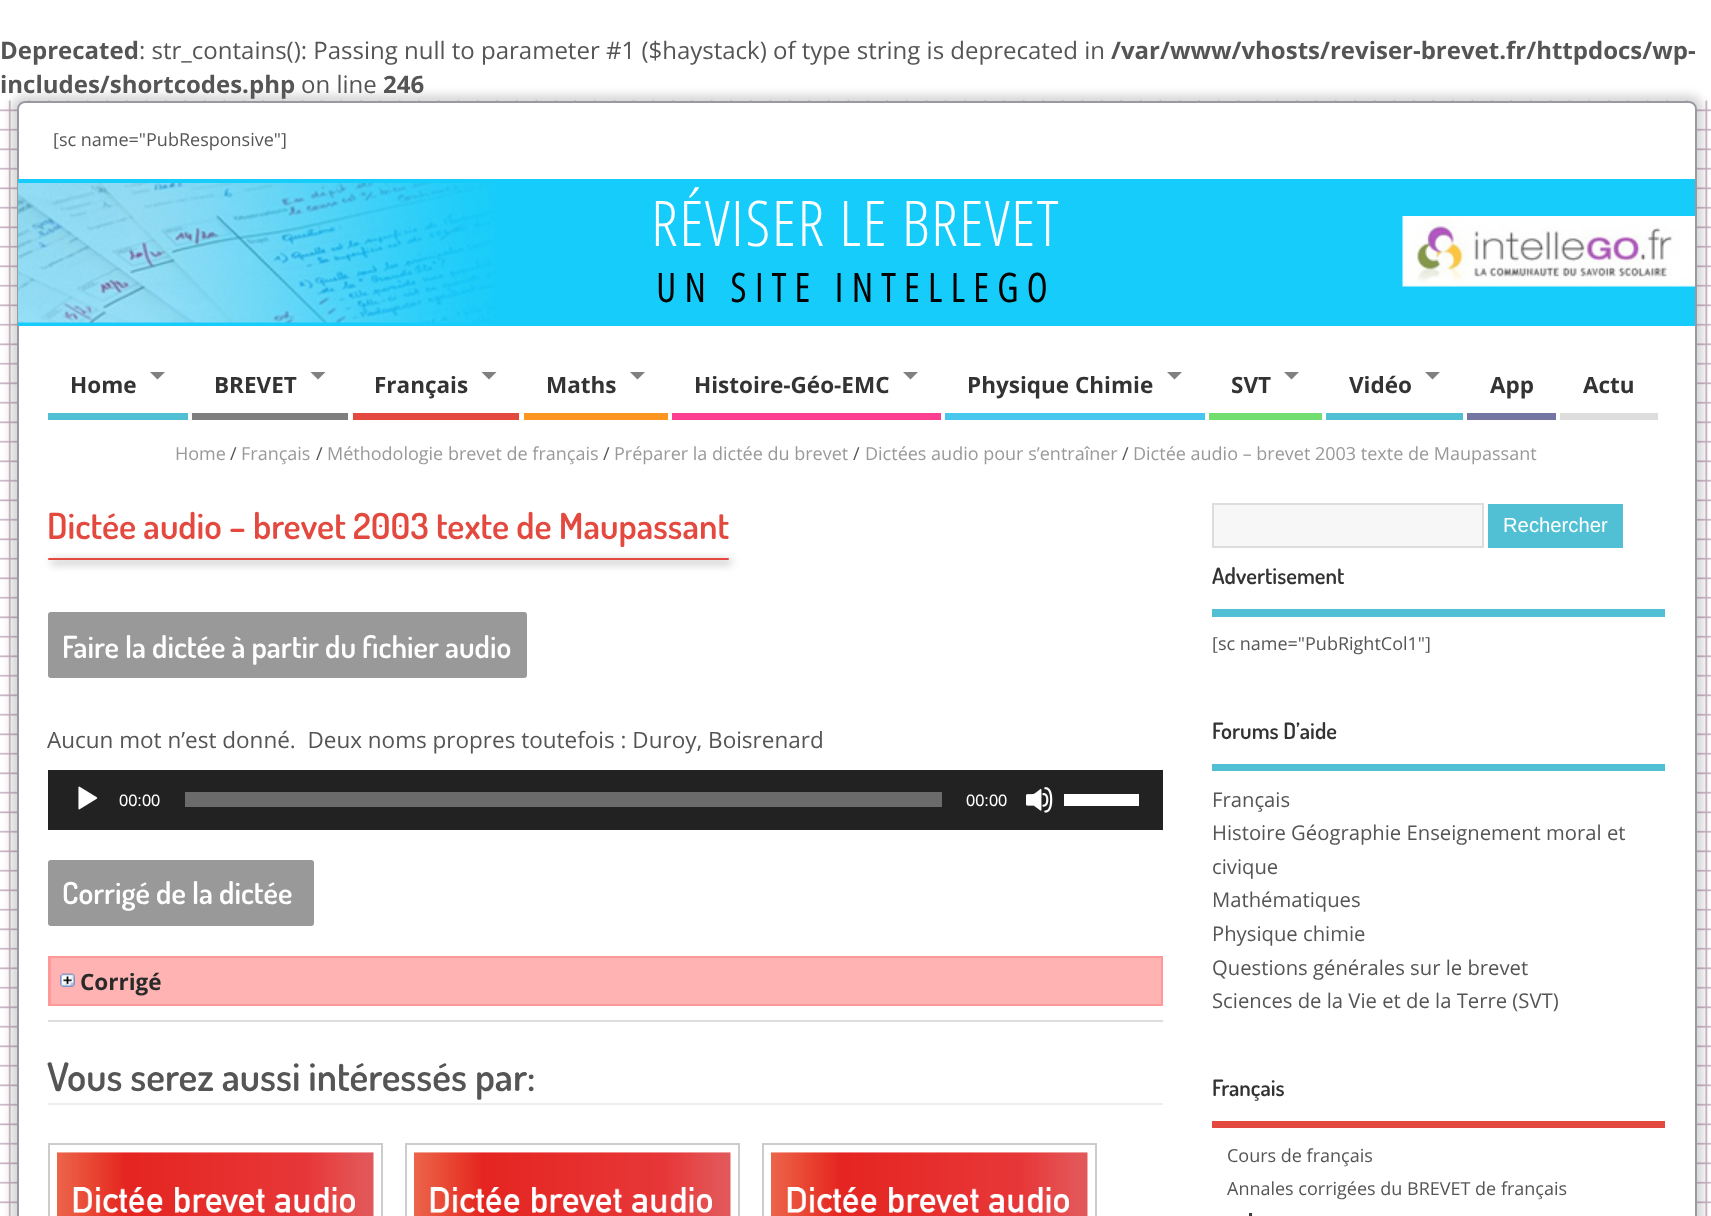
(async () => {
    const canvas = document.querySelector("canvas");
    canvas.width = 1711;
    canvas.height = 1216;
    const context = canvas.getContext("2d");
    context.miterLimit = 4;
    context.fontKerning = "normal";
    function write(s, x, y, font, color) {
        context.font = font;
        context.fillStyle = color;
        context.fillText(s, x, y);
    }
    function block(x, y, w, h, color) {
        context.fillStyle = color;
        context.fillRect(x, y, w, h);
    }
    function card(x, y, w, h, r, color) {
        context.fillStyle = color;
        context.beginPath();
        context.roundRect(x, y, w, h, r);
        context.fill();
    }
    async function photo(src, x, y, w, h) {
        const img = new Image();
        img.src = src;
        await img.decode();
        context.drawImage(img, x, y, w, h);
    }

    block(0, 0, 1711, 1216, "rgb(255, 255, 255)");
    write("Deprecated", 0, 59, "bold 24px Open Sans", "rgb(85, 85, 85)");
    write(": str_contains(): Passing null to parameter #1 ($haystack) of type string is deprecated in", 139, 59, "24px Open Sans", "rgb(85, 85, 85)");
    write("/var/www/vhosts/reviser-brevet.fr/httpdocs/wp-", 1111, 59, "bold 24px Open Sans", "rgb(85, 85, 85)");
    await photo("media/1.png", 0, 100, 1711, 1116);
    context.fillStyle = "rgba(0, 0, 0, 0.16)";
    context.filter = "blur(5px)";
    context.beginPath();
    context.roundRect(11, 95, 1692, 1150, 14);
    context.fill();
    context.filter = "none";
    write("includes/shortcodes.php", 0, 93, "bold 24px Open Sans", "rgb(85, 85, 85)");
    write("on line", 301, 93, "24px Open Sans", "rgb(85, 85, 85)");
    write("246", 383, 93, "bold 24px Open Sans", "rgb(85, 85, 85)");
    card(17, 101, 1680, 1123, 8, "rgb(255, 255, 255)");
    context.beginPath();
    context.roundRect(18, 102, 1678, 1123, 7);
    context.strokeStyle = "rgba(130, 126, 138, 0.8)";
    context.lineWidth = 2;
    context.stroke();
    write("[sc name=\"PubResponsive\"]", 53, 146, "18px Open Sans", "rgb(85, 85, 85)");
    block(18, 179, 1677, 147, "rgb(22, 204, 251)");
    await photo("media/2.png", 18, 183, 477, 140);
    context.letterSpacing = "1.5px";
    write("RÉVISER LE BREVET", 651, 246, "300 63px Open Sans Condensed", "rgb(255, 255, 255)");
    await photo("media/3.png", 1402, 216, 293, 71);
    context.letterSpacing = "9px";
    write("UN SITE INTELLEGO", 656, 302, "bold 39px Open Sans Condensed", "rgb(0, 0, 0)");
    block(48, 413, 140, 7, "rgb(82, 192, 212)");
    context.letterSpacing = "0px";
    write("Home", 70, 393, "bold 22.5px Open Sans", "rgb(51, 51, 51)");
    context.fillStyle = "rgb(128, 128, 128)";
    context.beginPath();
    context.moveTo(150, 372);
    context.lineTo(165, 372);
    context.lineTo(157.5, 379.5);
    context.closePath();
    context.fill();
    block(192, 413, 156, 7, "rgb(127, 127, 127)");
    write("BREVET", 214, 393, "bold 22.5px Open Sans", "rgb(51, 51, 51)");
    context.fillStyle = "rgb(128, 128, 128)";
    context.beginPath();
    context.moveTo(310.5, 372);
    context.lineTo(325.5, 372);
    context.lineTo(318, 379.5);
    context.closePath();
    context.fill();
    block(353, 413, 166, 7, "rgb(227, 73, 63)");
    write("Français", 374, 393, "bold 22.5px Open Sans", "rgb(51, 51, 51)");
    context.fillStyle = "rgb(128, 128, 128)";
    context.beginPath();
    context.moveTo(481.5, 372);
    context.lineTo(496.5, 372);
    context.lineTo(489, 379.5);
    context.closePath();
    context.fill();
    block(524, 413, 144, 7, "rgb(253, 149, 33)");
    write("Maths", 546, 393, "bold 22.5px Open Sans", "rgb(51, 51, 51)");
    context.fillStyle = "rgb(128, 128, 128)";
    context.beginPath();
    context.moveTo(630, 372);
    context.lineTo(645, 372);
    context.lineTo(637.5, 379.5);
    context.closePath();
    context.fill();
    block(672, 413, 269, 7, "rgb(253, 63, 146)");
    write("Histoire-Géo-EMC", 694, 393, "bold 22.5px Open Sans", "rgb(51, 51, 51)");
    context.fillStyle = "rgb(128, 128, 128)";
    context.beginPath();
    context.moveTo(903, 372);
    context.lineTo(918, 372);
    context.lineTo(910.5, 379.5);
    context.closePath();
    context.fill();
    block(945, 413, 260, 7, "rgb(71, 199, 237)");
    write("Physique Chimie", 967, 393, "bold 22.5px Open Sans", "rgb(51, 51, 51)");
    context.fillStyle = "rgb(128, 128, 128)";
    context.beginPath();
    context.moveTo(1167, 372);
    context.lineTo(1182, 372);
    context.lineTo(1174.5, 379.5);
    context.closePath();
    context.fill();
    block(1209, 413, 113, 7, "rgb(114, 222, 111)");
    write("SVT", 1231, 393, "bold 22.5px Open Sans", "rgb(51, 51, 51)");
    context.fillStyle = "rgb(128, 128, 128)";
    context.beginPath();
    context.moveTo(1284, 372);
    context.lineTo(1299, 372);
    context.lineTo(1291.5, 379.5);
    context.closePath();
    context.fill();
    block(1326, 413, 137, 7, "rgb(82, 192, 212)");
    write("Vidéo", 1349, 393, "bold 22.5px Open Sans", "rgb(51, 51, 51)");
    context.fillStyle = "rgb(128, 128, 128)";
    context.beginPath();
    context.moveTo(1425, 372);
    context.lineTo(1440, 372);
    context.lineTo(1432.5, 379.5);
    context.closePath();
    context.fill();
    block(1467, 413, 89, 7, "rgb(117, 117, 163)");
    write("App", 1490, 393, "bold 22.5px Open Sans", "rgb(51, 51, 51)");
    block(1560, 413, 98, 7, "rgb(221, 221, 221)");
    write("Actu", 1583, 393, "bold 22.5px Open Sans", "rgb(51, 51, 51)");
    write("Home", 175, 460, "18px Open Sans", "rgb(153, 153, 153)");
    write("/", 230, 460, "18px Open Sans", "rgb(85, 85, 85)");
    write("Français", 241, 460, "18px Open Sans", "rgb(153, 153, 153)");
    write("/", 316, 460, "18px Open Sans", "rgb(85, 85, 85)");
    write("Méthodologie brevet de français", 327, 460, "18px Open Sans", "rgb(153, 153, 153)");
    write("/", 603, 460, "18px Open Sans", "rgb(85, 85, 85)");
    write("Préparer la dictée du brevet", 614, 460, "18px Open Sans", "rgb(153, 153, 153)");
    write("/", 853, 460, "18px Open Sans", "rgb(85, 85, 85)");
    write("Dictées audio pour s’entraîner", 865, 460, "18px Open Sans", "rgb(153, 153, 153)");
    write("/", 1122, 460, "18px Open Sans", "rgb(85, 85, 85)");
    write("Dictée audio – brevet 2003 texte de Maupassant", 1133, 460, "18px Open Sans", "rgb(153, 153, 153)");
    write("Dictée audio – brevet 2003 texte de Maupassant", 47, 539, "600 36px Dosis", "rgb(227, 73, 63)");
    context.fillStyle = "rgb(101, 101, 101)";
    context.filter = "blur(4px)";
    context.beginPath();
    context.roundRect(51, 561, 681, 2, 1);
    context.fill();
    context.filter = "none";
    card(48, 558, 681, 2, 1, "rgb(227, 73, 63)");
    card(48, 612, 479, 66, 3, "rgb(153, 153, 153)");
    write("Faire la dictée à partir du fichier audio", 62, 658, "600 30.4px Dosis", "rgb(255, 255, 255)");
    write("Aucun mot n’est donné.  Deux noms propres toutefois : Duroy, Boisrenard", 47, 748, "22.5px Open Sans", "rgb(85, 85, 85)");
    block(48, 770, 1115, 60, "rgb(34, 34, 34)");
    await photo("media/4.png", 78, 786, 20, 24);
    write("00:00", 119, 806, "16.5px Liberation Sans", "rgb(255, 255, 255)");
    block(185, 792, 757, 15, "rgb(107, 107, 107)");
    write("00:00", 966, 806, "16.5px Liberation Sans", "rgb(255, 255, 255)");
    await photo("media/5.png", 1026, 787, 27, 26);
    block(1064, 794, 75, 12, "rgb(255, 255, 255)");
    card(48, 860, 266, 66, 3, "rgb(153, 153, 153)");
    write("Corrigé de la dictée", 62, 904, "600 30.4px Dosis", "rgb(255, 255, 255)");
    block(51, 958, 1110, 46, "rgb(255, 179, 179)");
    block(48, 956, 1115, 2, "rgb(255, 153, 153)");
    block(1161, 956, 2, 49, "rgb(255, 153, 153)");
    block(48, 1004, 1115, 2, "rgb(255, 153, 153)");
    block(48, 956, 3, 49, "rgb(255, 153, 153)");
    await photo("media/6.png", 60, 973, 15, 14);
    write("Corrigé", 80, 990, "bold 22.5px Open Sans", "rgb(42, 42, 42)");
    block(48, 1020, 1115, 2, "rgb(221, 221, 221)");
    block(48, 1103, 1115, 2, "rgb(238, 238, 238)");
    write("Vous serez aussi intéressés par:", 47, 1091, "600 39.4px Dosis", "rgb(85, 85, 85)");
    context.strokeStyle = "rgb(204, 204, 204)";
    context.strokeRect(49, 1144, 333, 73);
    await photo("media/7.png", 57, 1152, 317, 64);
    context.strokeRect(406, 1144, 333, 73);
    await photo("media/7.png", 414, 1152, 317, 64);
    context.strokeRect(763, 1144, 333, 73);
    await photo("media/7.png", 771, 1152, 317, 64);
    context.fillStyle = "rgb(247, 247, 247)";
    context.beginPath();
    context.rect(1213, 504, 270, 43);
    context.fill();
    context.strokeStyle = "rgb(221, 221, 221)";
    context.stroke();
    block(1488, 504, 135, 44, "rgb(82, 192, 212)");
    write("Rechercher", 1503, 532, "20.25px Liberation Sans", "rgb(255, 255, 255)");
    block(1212, 609, 453, 8, "rgb(82, 192, 212)");
    write("Advertisement", 1212, 584, "600 22.5px Dosis", "rgb(51, 51, 51)");
    write("[sc name=\"PubRightCol1\"]", 1212, 650, "18px Open Sans", "rgb(85, 85, 85)");
    block(1212, 764, 453, 7, "rgb(82, 192, 212)");
    write("Forums D’aide", 1212, 739, "600 22.5px Dosis", "rgb(51, 51, 51)");
    write("Français", 1212, 807, "20.25px Open Sans", "rgb(85, 85, 85)");
    write("Histoire Géographie Enseignement moral et", 1212, 840, "20.25px Open Sans", "rgb(85, 85, 85)");
    write("civique", 1212, 874, "20.25px Open Sans", "rgb(85, 85, 85)");
    write("Mathématiques", 1212, 907, "20.25px Open Sans", "rgb(85, 85, 85)");
    write("Physique chimie", 1212, 941, "20.25px Open Sans", "rgb(85, 85, 85)");
    write("Questions générales sur le brevet", 1212, 975, "20.25px Open Sans", "rgb(85, 85, 85)");
    write("Sciences de la Vie et de la Terre (SVT)", 1212, 1008, "20.25px Open Sans", "rgb(85, 85, 85)");
    block(1212, 1121, 453, 7, "rgb(227, 73, 63)");
    write("Français", 1212, 1096, "600 22.5px Dosis", "rgb(51, 51, 51)");
    write("Cours de français", 1227, 1162, "18px Open Sans", "rgb(85, 85, 85)");
    write("Annales corrigées du BREVET de français", 1227, 1195, "18px Open Sans", "rgb(85, 85, 85)");
    block(1249, 1213, 3, 3, "rgb(61, 61, 61)");
})();
